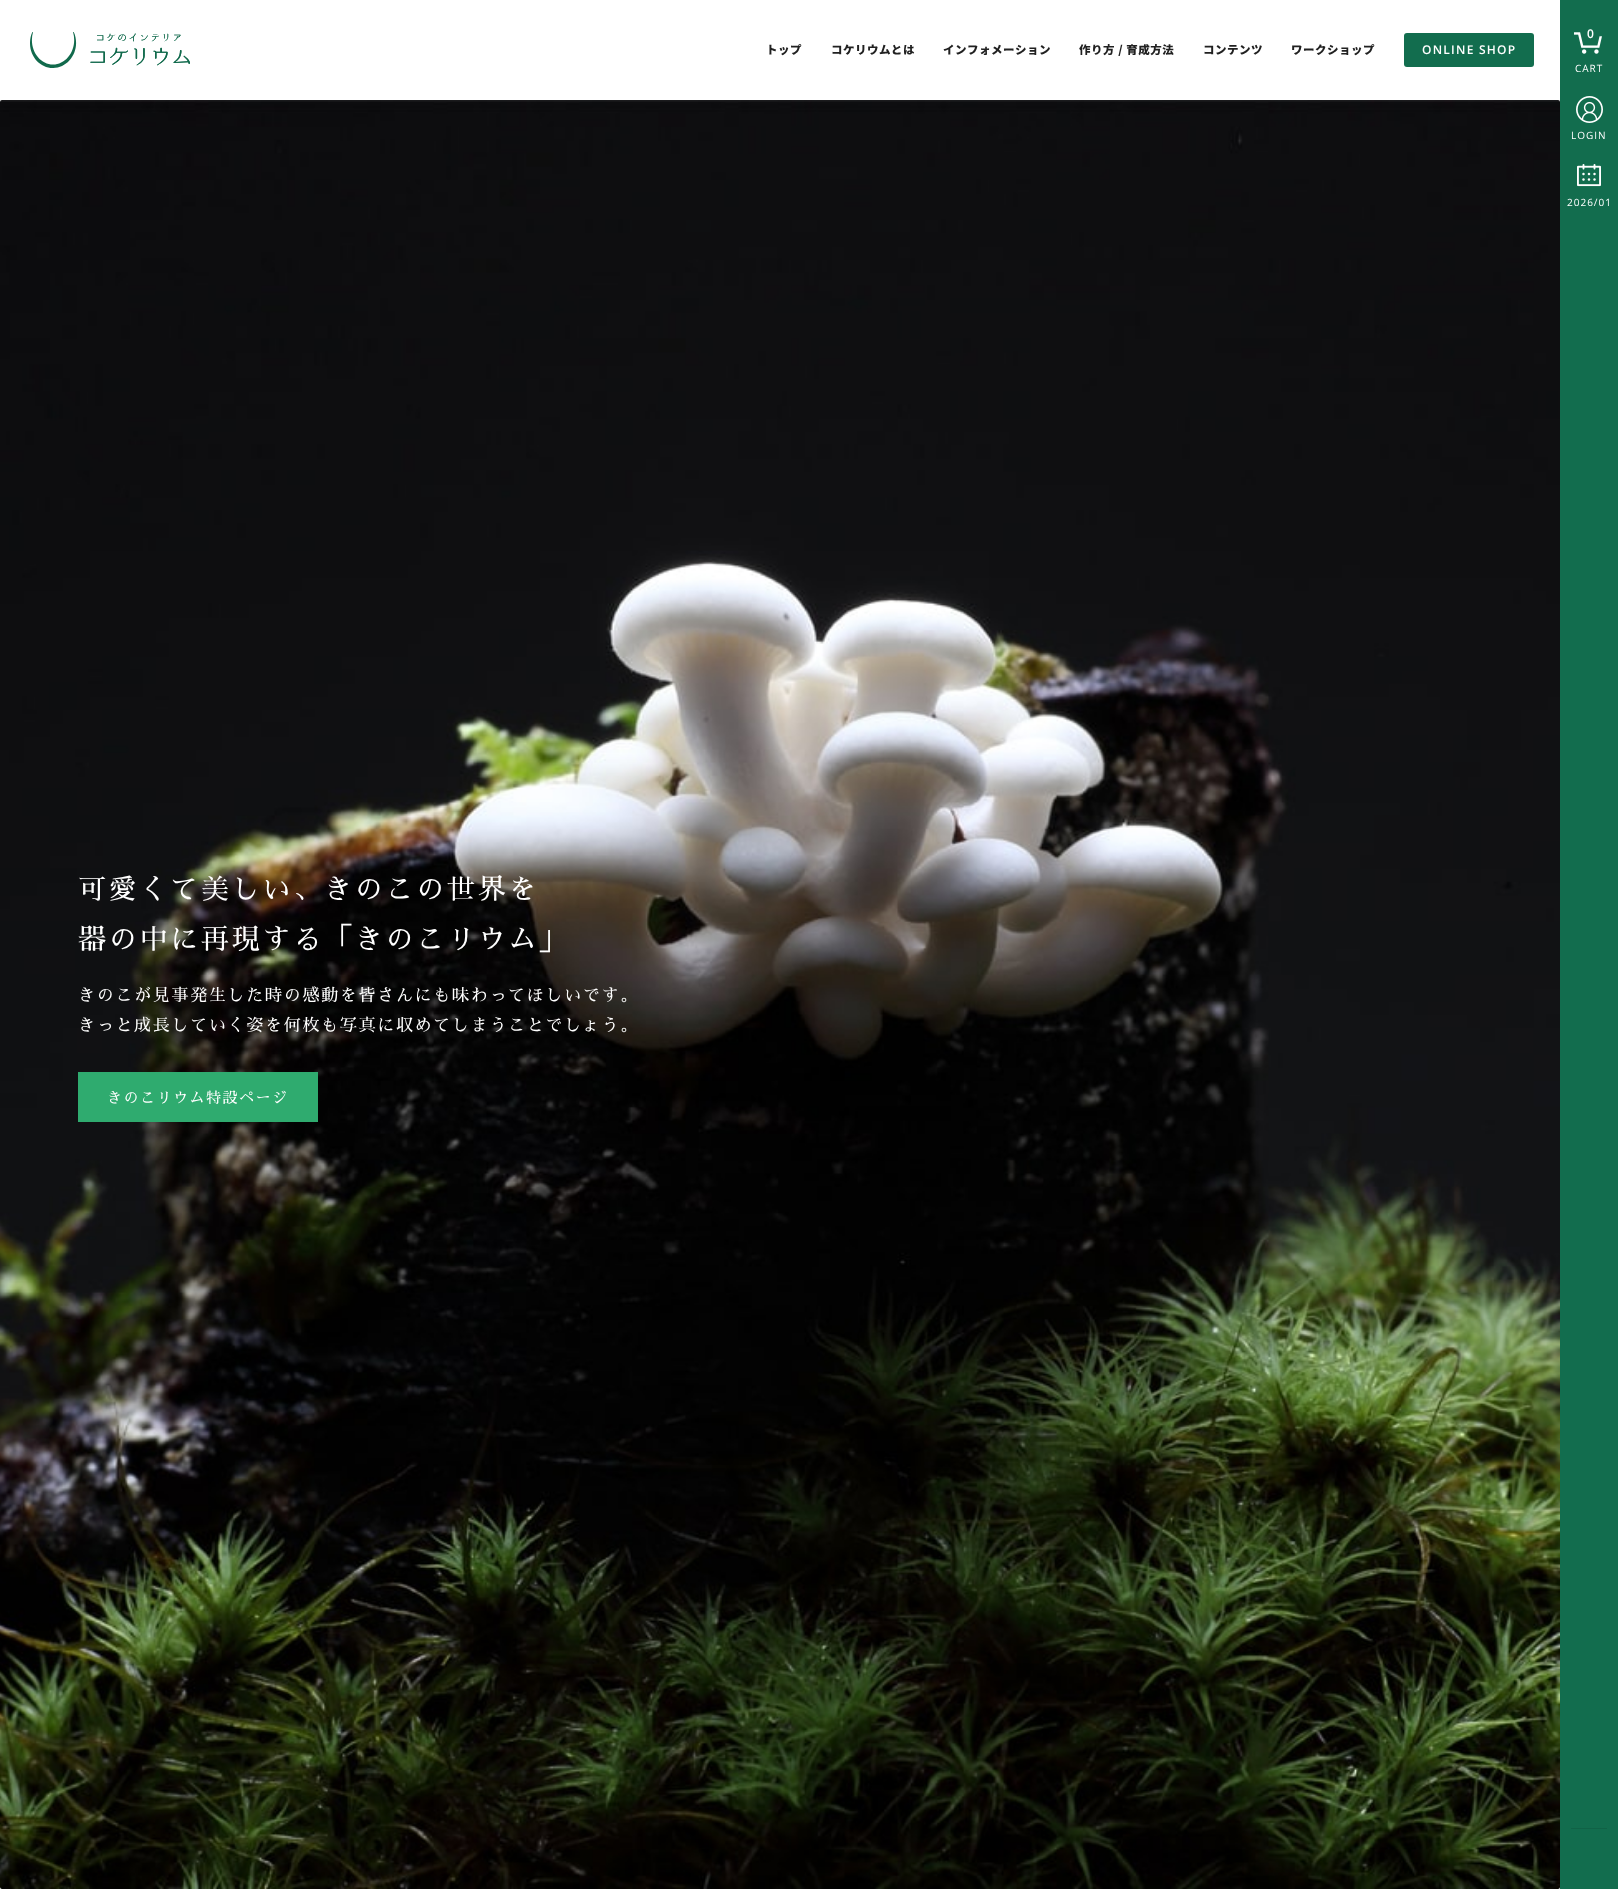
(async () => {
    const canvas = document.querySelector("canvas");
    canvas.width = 1618;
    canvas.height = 1889;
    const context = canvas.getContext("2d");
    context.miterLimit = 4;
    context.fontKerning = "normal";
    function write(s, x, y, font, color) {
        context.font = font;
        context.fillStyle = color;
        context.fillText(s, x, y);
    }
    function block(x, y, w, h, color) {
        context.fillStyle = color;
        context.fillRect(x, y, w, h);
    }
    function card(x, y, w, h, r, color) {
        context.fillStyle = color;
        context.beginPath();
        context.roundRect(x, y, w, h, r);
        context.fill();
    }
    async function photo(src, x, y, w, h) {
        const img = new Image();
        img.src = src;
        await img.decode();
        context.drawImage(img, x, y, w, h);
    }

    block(0, 0, 1618, 1889, "rgb(255, 255, 255)");
    await photo("media/1.png", 30, 32, 160, 36);
    context.letterSpacing = "0.5px";
    write("トップ", 766, 54, "900 11.5px Noto Sans JP", "rgb(33, 33, 33)");
    write("コケリウムとは", 831, 54, "900 11.5px Noto Sans JP", "rgb(33, 33, 33)");
    write("インフォメーション", 943, 54, "900 11.5px Noto Sans JP", "rgb(33, 33, 33)");
    write("作り方 / 育成方法", 1079, 54, "900 11.5px Noto Sans JP", "rgb(33, 33, 33)");
    write("コンテンツ", 1203, 54, "900 11.5px Noto Sans JP", "rgb(33, 33, 33)");
    write("ワークショップ", 1291, 54, "900 11.5px Noto Sans JP", "rgb(33, 33, 33)");
    card(1404, 33, 130, 34, 3, "rgb(18, 109, 78)");
    context.letterSpacing = "1.25px";
    write("ONLINE SHOP", 1422, 54, "600 12px Open Sans", "rgb(255, 255, 255)");
    block(1560, 0, 58, 1889, "rgb(18, 109, 78)");
    await photo("media/2.png", 1574, 32, 28, 22);
    context.letterSpacing = "1px";
    write("0", 1587, 38, "600 12px Open Sans", "rgb(255, 255, 255)");
    write("CART", 1575, 72, "10px Open Sans", "rgb(255, 255, 255)");
    await photo("media/3.png", 1576, 96, 27, 27);
    write("LOGIN", 1571, 139, "10px Open Sans", "rgb(255, 255, 255)");
    await photo("media/4.png", 1577, 164, 24, 23);
    write("2026/01", 1567, 206, "10px Open Sans", "rgb(255, 255, 255)");
    block(1571, 1828, 36, 1, "rgb(16, 98, 70)");
    await photo("media/5.png", 0, 100, 1560, 1789);
    context.letterSpacing = "2.75px";
    write("可愛くて美しい、きのこの世界を", 78, 899, "28px Sawarabi Mincho", "rgb(255, 255, 255)");
    write("器の中に再現する「きのこリウム」", 78, 949, "28px Sawarabi Mincho", "rgb(255, 255, 255)");
    context.letterSpacing = "1.7px";
    write("きのこが見事発生した時の感動を皆さんにも味わってほしいです。", 78, 1001, "17px Sawarabi Mincho", "rgb(255, 255, 255)");
    write("きっと成長していく姿を何枚も写真に収めてしまうことでしょう。", 78, 1031, "17px Sawarabi Mincho", "rgb(255, 255, 255)");
    block(78, 1072, 240, 50, "rgb(47, 171, 111)");
    context.letterSpacing = "1.5px";
    write("きのこリウム特設ページ", 107, 1103, "15px Sawarabi Mincho", "rgb(255, 255, 255)");
})();
